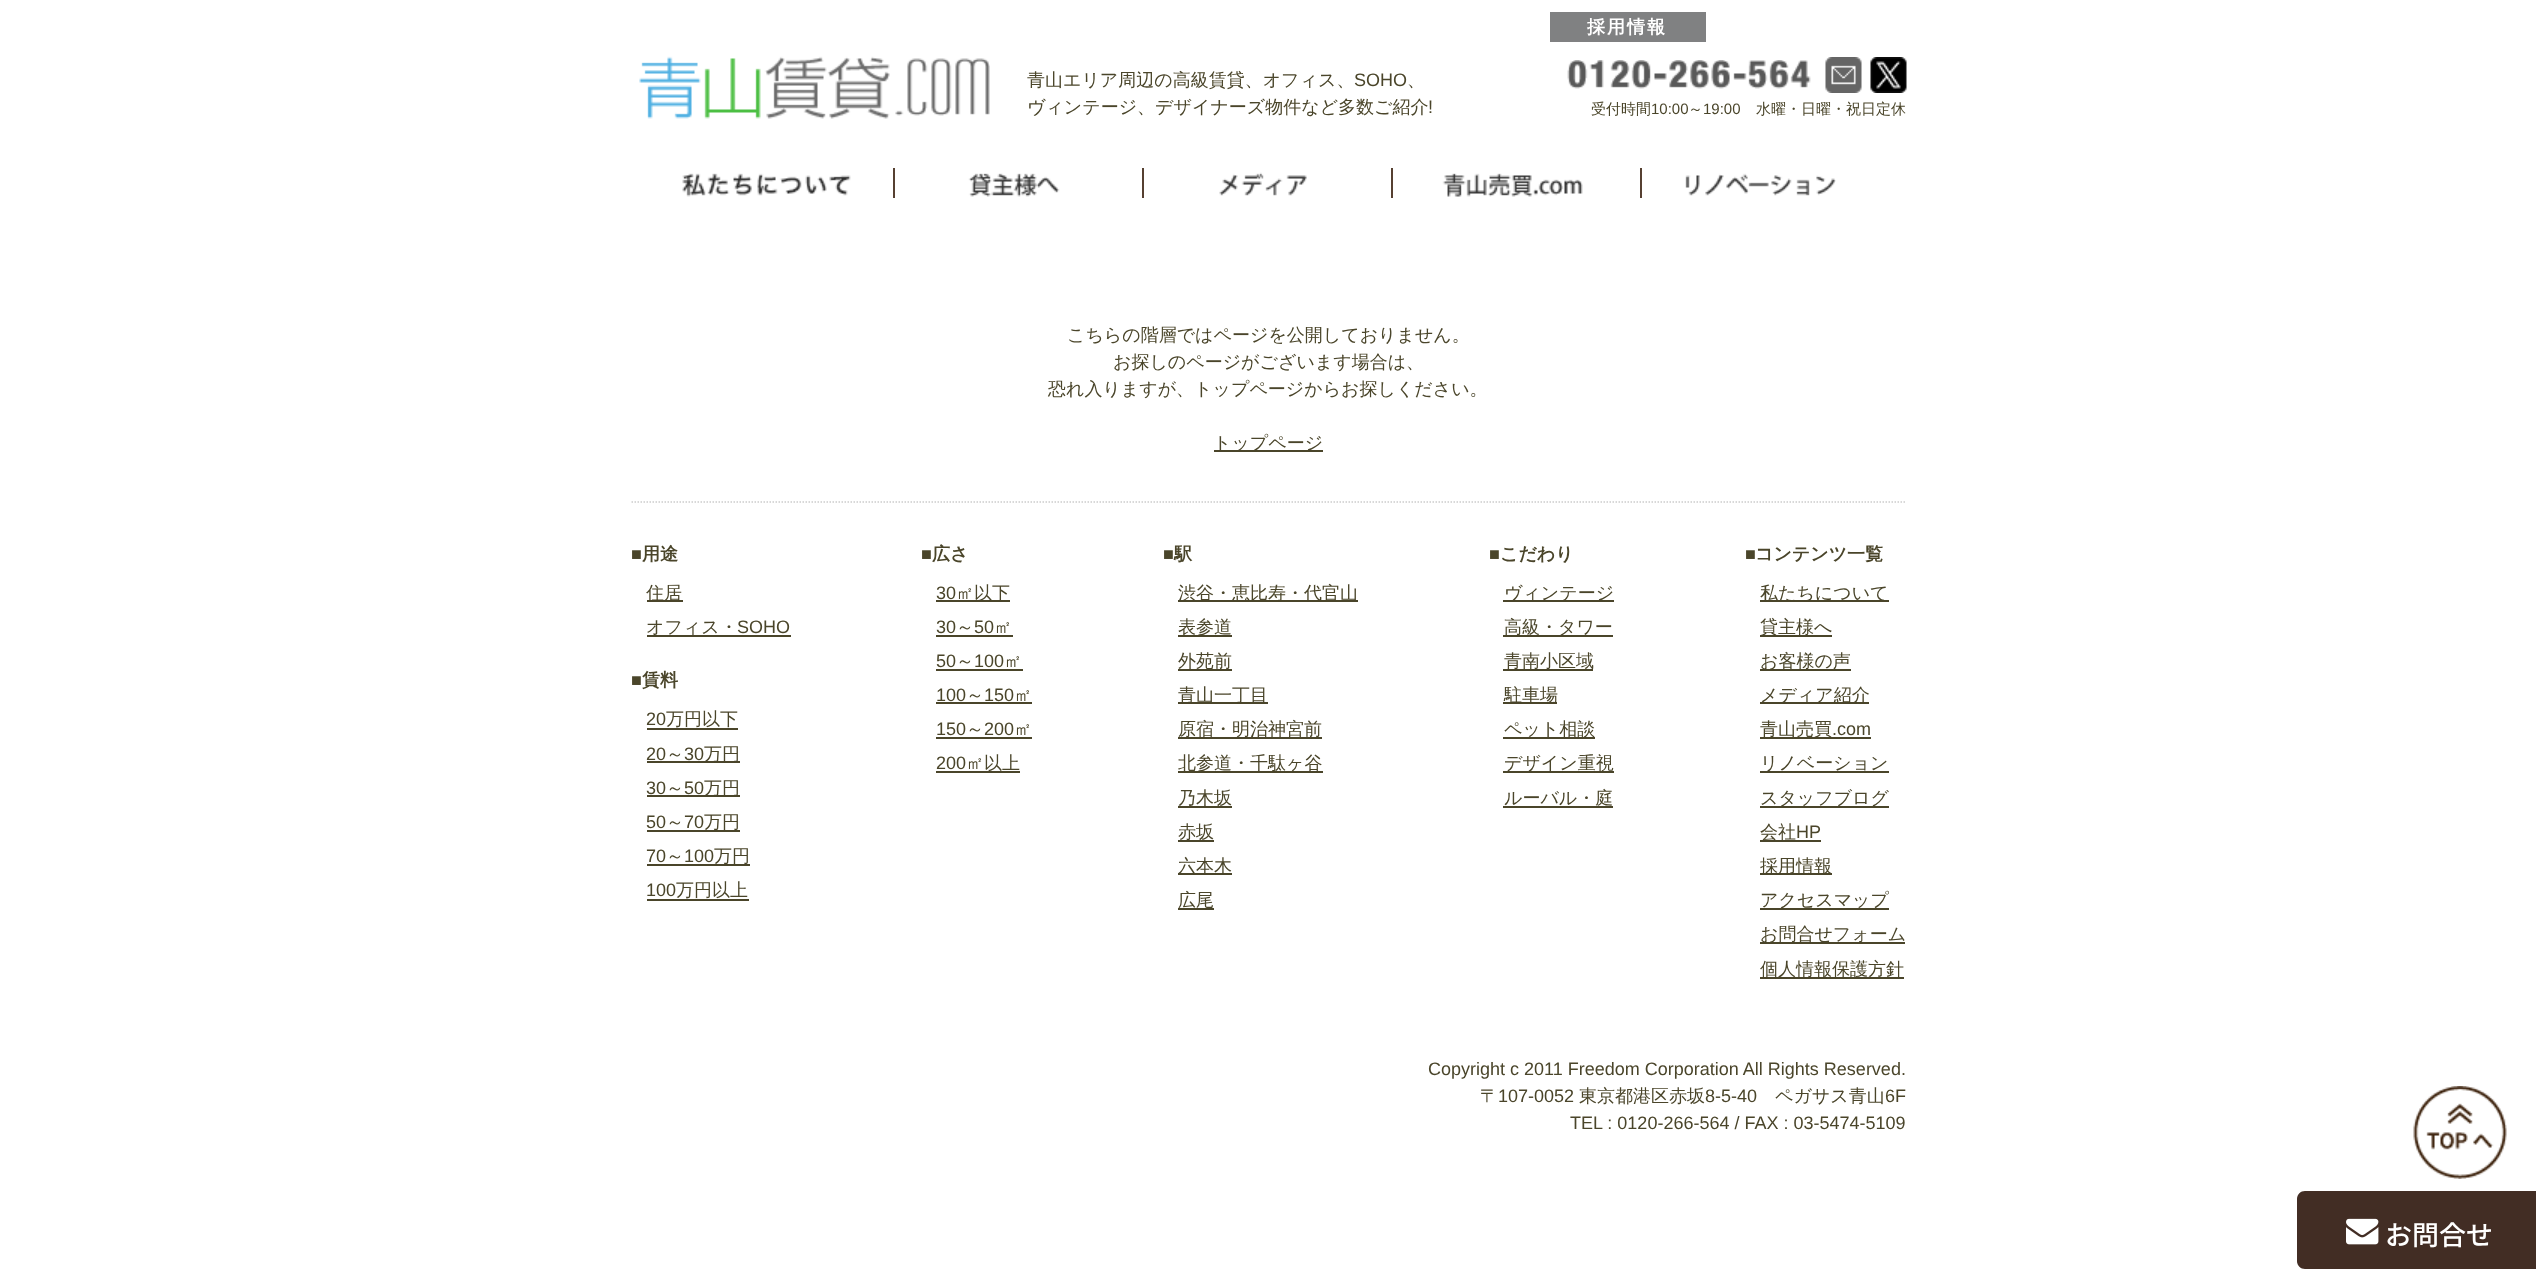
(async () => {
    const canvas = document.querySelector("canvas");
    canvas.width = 2536;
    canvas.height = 1283;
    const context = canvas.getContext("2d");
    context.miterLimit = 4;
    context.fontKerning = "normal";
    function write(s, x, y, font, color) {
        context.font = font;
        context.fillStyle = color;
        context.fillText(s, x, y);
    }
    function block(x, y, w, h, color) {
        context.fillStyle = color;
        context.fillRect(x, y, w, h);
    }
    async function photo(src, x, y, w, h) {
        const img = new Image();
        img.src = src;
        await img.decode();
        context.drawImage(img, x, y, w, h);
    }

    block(0, 0, 2536, 1283, "rgb(255, 255, 255)");
    block(1550, 12, 156, 30, "rgb(128, 129, 130)");
    context.letterSpacing = "2px";
    write("採用情報", 1587, 33, "bold 18px WenQuanYi Zen Hei", "rgb(255, 255, 255)");
    await photo("media/1.png", 639, 56, 351, 63);
    context.letterSpacing = "0px";
    write("青山エリア周辺の高級賃貸、オフィス、", 1027, 86, "500 18px WenQuanYi Zen Hei", "rgb(74, 69, 42)");
    write("SOHO", 1354, 86, "18px Liberation Sans", "rgb(74, 69, 42)");
    write("、", 1407, 86, "500 18px WenQuanYi Zen Hei", "rgb(74, 69, 42)");
    write("ヴィンテージ、デザイナーズ物件など多数ご紹介", 1027, 113, "500 18px WenQuanYi Zen Hei", "rgb(74, 69, 42)");
    write("!", 1428, 113, "18px Liberation Sans", "rgb(74, 69, 42)");
    await photo("media/2.png", 1567, 60, 244, 29);
    await photo("media/3.png", 1825, 57, 37, 36);
    await photo("media/4.png", 1870, 57, 37, 36);
    write("受付時間", 1591, 114, "500 15px WenQuanYi Zen Hei", "rgb(74, 69, 42)");
    write("10:00", 1651, 114, "15px Liberation Sans", "rgb(74, 69, 42)");
    write("～", 1688, 114, "500 15px WenQuanYi Zen Hei", "rgb(74, 69, 42)");
    write("19:00", 1703, 114, "15px Liberation Sans", "rgb(74, 69, 42)");
    write("水曜・日曜・祝日定休", 1756, 114, "500 15px WenQuanYi Zen Hei", "rgb(74, 69, 42)");
    await photo("media/5.png", 682, 173, 169, 24);
    block(893, 168, 2, 30, "rgb(86, 64, 49)");
    await photo("media/6.png", 968, 173, 92, 24);
    block(1142, 168, 2, 30, "rgb(86, 64, 49)");
    await photo("media/7.png", 1219, 172, 88, 24);
    block(1391, 168, 2, 30, "rgb(86, 64, 49)");
    await photo("media/8.png", 1442, 173, 141, 24);
    block(1640, 168, 2, 30, "rgb(86, 64, 49)");
    await photo("media/9.png", 1685, 173, 151, 23);
    write("こちらの階層ではページを公開しておりません。", 1067, 341, "500 18px WenQuanYi Zen Hei", "rgb(74, 69, 42)");
    write("お探しのページがございます場合は、", 1113, 368, "500 18px WenQuanYi Zen Hei", "rgb(74, 69, 42)");
    write("恐れ入りますが、トップページからお探しください。", 1048, 395, "500 18px WenQuanYi Zen Hei", "rgb(74, 69, 42)");
    block(1214, 450, 109, 2, "rgb(74, 69, 42)");
    write("トップページ", 1213, 449, "500 18px WenQuanYi Zen Hei", "rgb(74, 69, 42)");
    context.beginPath();
    context.moveTo(631.5, 502);
    context.lineTo(1906.5, 502);
    context.strokeStyle = "rgb(204, 204, 204)";
    context.lineWidth = 1.5;
    context.setLineDash([1.5, 1.5]);
    context.stroke();
    context.save();
    context.beginPath();
    context.rect(632, 503, 1275, 634);
    context.clip();
    write("■", 631, 560, "bold 18px Liberation Sans", "rgb(74, 69, 42)");
    context.restore();
    write("用途", 642, 560, "bold 18px WenQuanYi Zen Hei", "rgb(74, 69, 42)");
    block(647, 600, 36, 2, "rgb(74, 69, 42)");
    write("住居", 646, 599, "500 18px WenQuanYi Zen Hei", "rgb(74, 69, 42)");
    write("オフィス・", 646, 633, "500 18px WenQuanYi Zen Hei", "rgb(74, 69, 42)");
    block(647, 635, 144, 2, "rgb(74, 69, 42)");
    write("SOHO", 737, 633, "18px Liberation Sans", "rgb(74, 69, 42)");
    context.save();
    context.beginPath();
    context.rect(632, 503, 1275, 634);
    context.clip();
    write("■", 631, 686, "bold 18px Liberation Sans", "rgb(74, 69, 42)");
    context.restore();
    write("賃料", 642, 686, "bold 18px WenQuanYi Zen Hei", "rgb(74, 69, 42)");
    write("20", 646, 725, "18px Liberation Sans", "rgb(74, 69, 42)");
    block(647, 728, 91, 2, "rgb(74, 69, 42)");
    write("万円以下", 666, 725, "500 18px WenQuanYi Zen Hei", "rgb(74, 69, 42)");
    write("20", 646, 760, "18px Liberation Sans", "rgb(74, 69, 42)");
    write("～", 666, 760, "500 18px WenQuanYi Zen Hei", "rgb(74, 69, 42)");
    block(647, 761, 93, 2, "rgb(74, 69, 42)");
    write("30", 684, 760, "18px Liberation Sans", "rgb(74, 69, 42)");
    write("万円", 704, 760, "500 18px WenQuanYi Zen Hei", "rgb(74, 69, 42)");
    write("30", 646, 794, "18px Liberation Sans", "rgb(74, 69, 42)");
    write("～", 666, 794, "500 18px WenQuanYi Zen Hei", "rgb(74, 69, 42)");
    block(647, 795, 93, 2, "rgb(74, 69, 42)");
    write("50", 684, 794, "18px Liberation Sans", "rgb(74, 69, 42)");
    write("万円", 704, 794, "500 18px WenQuanYi Zen Hei", "rgb(74, 69, 42)");
    write("50", 646, 828, "18px Liberation Sans", "rgb(74, 69, 42)");
    write("～", 666, 828, "500 18px WenQuanYi Zen Hei", "rgb(74, 69, 42)");
    block(647, 830, 93, 2, "rgb(74, 69, 42)");
    write("70", 684, 828, "18px Liberation Sans", "rgb(74, 69, 42)");
    write("万円", 704, 828, "500 18px WenQuanYi Zen Hei", "rgb(74, 69, 42)");
    write("70", 646, 862, "18px Liberation Sans", "rgb(74, 69, 42)");
    write("～", 666, 862, "500 18px WenQuanYi Zen Hei", "rgb(74, 69, 42)");
    block(647, 864, 103, 2, "rgb(74, 69, 42)");
    write("100", 684, 862, "18px Liberation Sans", "rgb(74, 69, 42)");
    write("万円", 714, 862, "500 18px WenQuanYi Zen Hei", "rgb(74, 69, 42)");
    write("100", 646, 896, "18px Liberation Sans", "rgb(74, 69, 42)");
    block(647, 899, 102, 2, "rgb(74, 69, 42)");
    write("万円以上", 676, 896, "500 18px WenQuanYi Zen Hei", "rgb(74, 69, 42)");
    write("■", 921, 560, "bold 18px Liberation Sans", "rgb(74, 69, 42)");
    write("広さ", 932, 560, "bold 18px WenQuanYi Zen Hei", "rgb(74, 69, 42)");
    write("30", 936, 599, "18px Liberation Sans", "rgb(74, 69, 42)");
    block(936, 600, 74, 2, "rgb(74, 69, 42)");
    write("㎡以下", 956, 599, "500 18px WenQuanYi Zen Hei", "rgb(74, 69, 42)");
    write("30", 936, 633, "18px Liberation Sans", "rgb(74, 69, 42)");
    write("～", 956, 633, "500 18px WenQuanYi Zen Hei", "rgb(74, 69, 42)");
    block(936, 635, 77, 2, "rgb(74, 69, 42)");
    write("50", 974, 633, "18px Liberation Sans", "rgb(74, 69, 42)");
    write("㎡", 994, 633, "500 18px WenQuanYi Zen Hei", "rgb(74, 69, 42)");
    write("50", 936, 667, "18px Liberation Sans", "rgb(74, 69, 42)");
    write("～", 956, 667, "500 18px WenQuanYi Zen Hei", "rgb(74, 69, 42)");
    block(936, 669, 87, 2, "rgb(74, 69, 42)");
    write("100", 974, 667, "18px Liberation Sans", "rgb(74, 69, 42)");
    write("㎡", 1004, 667, "500 18px WenQuanYi Zen Hei", "rgb(74, 69, 42)");
    write("100", 936, 701, "18px Liberation Sans", "rgb(74, 69, 42)");
    write("～", 966, 701, "500 18px WenQuanYi Zen Hei", "rgb(74, 69, 42)");
    block(936, 702, 96, 2, "rgb(74, 69, 42)");
    write("150", 984, 701, "18px Liberation Sans", "rgb(74, 69, 42)");
    write("㎡", 1014, 701, "500 18px WenQuanYi Zen Hei", "rgb(74, 69, 42)");
    write("150", 936, 735, "18px Liberation Sans", "rgb(74, 69, 42)");
    write("～", 966, 735, "500 18px WenQuanYi Zen Hei", "rgb(74, 69, 42)");
    block(936, 737, 96, 2, "rgb(74, 69, 42)");
    write("200", 984, 735, "18px Liberation Sans", "rgb(74, 69, 42)");
    write("㎡", 1014, 735, "500 18px WenQuanYi Zen Hei", "rgb(74, 69, 42)");
    write("200", 936, 769, "18px Liberation Sans", "rgb(74, 69, 42)");
    block(936, 771, 84, 2, "rgb(74, 69, 42)");
    write("㎡以上", 966, 769, "500 18px WenQuanYi Zen Hei", "rgb(74, 69, 42)");
    write("■", 1163, 560, "bold 18px Liberation Sans", "rgb(74, 69, 42)");
    write("駅", 1174, 560, "bold 18px WenQuanYi Zen Hei", "rgb(74, 69, 42)");
    block(1178, 600, 180, 2, "rgb(74, 69, 42)");
    write("渋谷・恵比寿・代官山", 1178, 599, "500 18px WenQuanYi Zen Hei", "rgb(74, 69, 42)");
    block(1178, 635, 54, 2, "rgb(74, 69, 42)");
    write("表参道", 1178, 633, "500 18px WenQuanYi Zen Hei", "rgb(74, 69, 42)");
    block(1178, 669, 54, 2, "rgb(74, 69, 42)");
    write("外苑前", 1178, 667, "500 18px WenQuanYi Zen Hei", "rgb(74, 69, 42)");
    block(1178, 702, 90, 2, "rgb(74, 69, 42)");
    write("青山一丁目", 1178, 701, "500 18px WenQuanYi Zen Hei", "rgb(74, 69, 42)");
    block(1178, 737, 144, 2, "rgb(74, 69, 42)");
    write("原宿・明治神宮前", 1178, 735, "500 18px WenQuanYi Zen Hei", "rgb(74, 69, 42)");
    block(1178, 771, 145, 2, "rgb(74, 69, 42)");
    write("北参道・千駄ヶ谷", 1178, 769, "500 18px WenQuanYi Zen Hei", "rgb(74, 69, 42)");
    block(1178, 806, 54, 2, "rgb(74, 69, 42)");
    write("乃木坂", 1178, 804, "500 18px WenQuanYi Zen Hei", "rgb(74, 69, 42)");
    block(1178, 840, 36, 2, "rgb(74, 69, 42)");
    write("赤坂", 1178, 838, "500 18px WenQuanYi Zen Hei", "rgb(74, 69, 42)");
    block(1178, 873, 54, 2, "rgb(74, 69, 42)");
    write("六本木", 1178, 872, "500 18px WenQuanYi Zen Hei", "rgb(74, 69, 42)");
    write("広尾", 1178, 906, "500 18px WenQuanYi Zen Hei", "rgb(74, 69, 42)");
    block(1178, 908, 36, 2, "rgb(74, 69, 42)");
    write("■", 1489, 560, "bold 18px Liberation Sans", "rgb(74, 69, 42)");
    write("こだわり", 1500, 560, "bold 18px WenQuanYi Zen Hei", "rgb(74, 69, 42)");
    block(1503, 600, 111, 2, "rgb(74, 69, 42)");
    write("ヴィンテージ", 1504, 599, "500 18px WenQuanYi Zen Hei", "rgb(74, 69, 42)");
    block(1503, 635, 110, 2, "rgb(74, 69, 42)");
    write("高級・タワー", 1504, 633, "500 18px WenQuanYi Zen Hei", "rgb(74, 69, 42)");
    block(1503, 669, 90, 2, "rgb(74, 69, 42)");
    write("青南小区域", 1504, 667, "500 18px WenQuanYi Zen Hei", "rgb(74, 69, 42)");
    block(1503, 702, 54, 2, "rgb(74, 69, 42)");
    write("駐車場", 1504, 701, "500 18px WenQuanYi Zen Hei", "rgb(74, 69, 42)");
    block(1503, 737, 92, 2, "rgb(74, 69, 42)");
    write("ペット相談", 1504, 735, "500 18px WenQuanYi Zen Hei", "rgb(74, 69, 42)");
    block(1503, 771, 111, 2, "rgb(74, 69, 42)");
    write("デザイン重視", 1504, 769, "500 18px WenQuanYi Zen Hei", "rgb(74, 69, 42)");
    write("ルーバル・庭", 1504, 804, "500 18px WenQuanYi Zen Hei", "rgb(74, 69, 42)");
    block(1503, 806, 110, 2, "rgb(74, 69, 42)");
    write("■", 1745, 560, "bold 18px Liberation Sans", "rgb(74, 69, 42)");
    write("コンテンツ一覧", 1755, 560, "bold 18px WenQuanYi Zen Hei", "rgb(74, 69, 42)");
    block(1760, 600, 129, 2, "rgb(74, 69, 42)");
    write("私たちについて", 1760, 599, "500 18px WenQuanYi Zen Hei", "rgb(74, 69, 42)");
    block(1760, 635, 72, 2, "rgb(74, 69, 42)");
    write("貸主様へ", 1760, 633, "500 18px WenQuanYi Zen Hei", "rgb(74, 69, 42)");
    block(1760, 669, 91, 2, "rgb(74, 69, 42)");
    write("お客様の声", 1760, 667, "500 18px WenQuanYi Zen Hei", "rgb(74, 69, 42)");
    block(1760, 702, 109, 2, "rgb(74, 69, 42)");
    write("メディア紹介", 1760, 701, "500 18px WenQuanYi Zen Hei", "rgb(74, 69, 42)");
    block(1760, 737, 111, 2, "rgb(74, 69, 42)");
    write("青山売買", 1760, 735, "500 18px WenQuanYi Zen Hei", "rgb(74, 69, 42)");
    write(".com", 1832, 735, "18px Liberation Sans", "rgb(74, 69, 42)");
    block(1760, 771, 129, 2, "rgb(74, 69, 42)");
    write("リノベーション", 1760, 769, "500 18px WenQuanYi Zen Hei", "rgb(74, 69, 42)");
    block(1760, 806, 129, 2, "rgb(74, 69, 42)");
    write("スタッフブログ", 1760, 804, "500 18px WenQuanYi Zen Hei", "rgb(74, 69, 42)");
    block(1760, 840, 61, 2, "rgb(74, 69, 42)");
    write("会社", 1760, 838, "500 18px WenQuanYi Zen Hei", "rgb(74, 69, 42)");
    write("HP", 1796, 838, "18px Liberation Sans", "rgb(74, 69, 42)");
    block(1760, 873, 72, 2, "rgb(74, 69, 42)");
    write("採用情報", 1760, 872, "500 18px WenQuanYi Zen Hei", "rgb(74, 69, 42)");
    block(1760, 908, 129, 2, "rgb(74, 69, 42)");
    write("アクセスマップ", 1760, 906, "500 18px WenQuanYi Zen Hei", "rgb(74, 69, 42)");
    block(1760, 942, 145, 2, "rgb(74, 69, 42)");
    write("お問合せフォーム", 1760, 940, "500 18px WenQuanYi Zen Hei", "rgb(74, 69, 42)");
    block(1760, 977, 144, 2, "rgb(74, 69, 42)");
    write("個人情報保護方針", 1760, 975, "500 18px WenQuanYi Zen Hei", "rgb(74, 69, 42)");
    write("Copyright c 2011 Freedom Corporation All Rights Reserved.", 1428, 1075, "18px Liberation Sans", "rgb(74, 69, 42)");
    write("〒", 1480, 1102, "500 18px WenQuanYi Zen Hei", "rgb(74, 69, 42)");
    write("107-0052", 1498, 1102, "18px Liberation Sans", "rgb(74, 69, 42)");
    write("東京都港区赤坂", 1579, 1102, "500 18px WenQuanYi Zen Hei", "rgb(74, 69, 42)");
    write("8-5-40", 1705, 1102, "18px Liberation Sans", "rgb(74, 69, 42)");
    write("ペガサス青山", 1775, 1102, "500 18px WenQuanYi Zen Hei", "rgb(74, 69, 42)");
    write("6F", 1885, 1102, "18px Liberation Sans", "rgb(74, 69, 42)");
    write("TEL : 0120-266-564 / FAX : 03-5474-5109", 1570, 1129, "18px Liberation Sans", "rgb(74, 69, 42)");
    await photo("media/10.png", 2413, 1086, 94, 93);
    context.fillStyle = "rgb(66, 45, 36)";
    context.beginPath();
    context.moveTo(2305, 1191);
    context.lineTo(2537, 1191);
    context.lineTo(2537, 1269);
    context.lineTo(2305, 1269);
    context.bezierCurveTo(2300.5, 1269, 2297, 1265.5, 2297, 1261);
    context.lineTo(2297, 1199);
    context.bezierCurveTo(2297, 1194.5, 2300.5, 1191, 2305, 1191);
    context.closePath();
    context.fill();
    await photo("media/11.png", 2346, 1218, 33, 27);
    write("お問合せ", 2385, 1245, "100 27px Noto Sans JP", "rgb(255, 255, 255)");
})();
